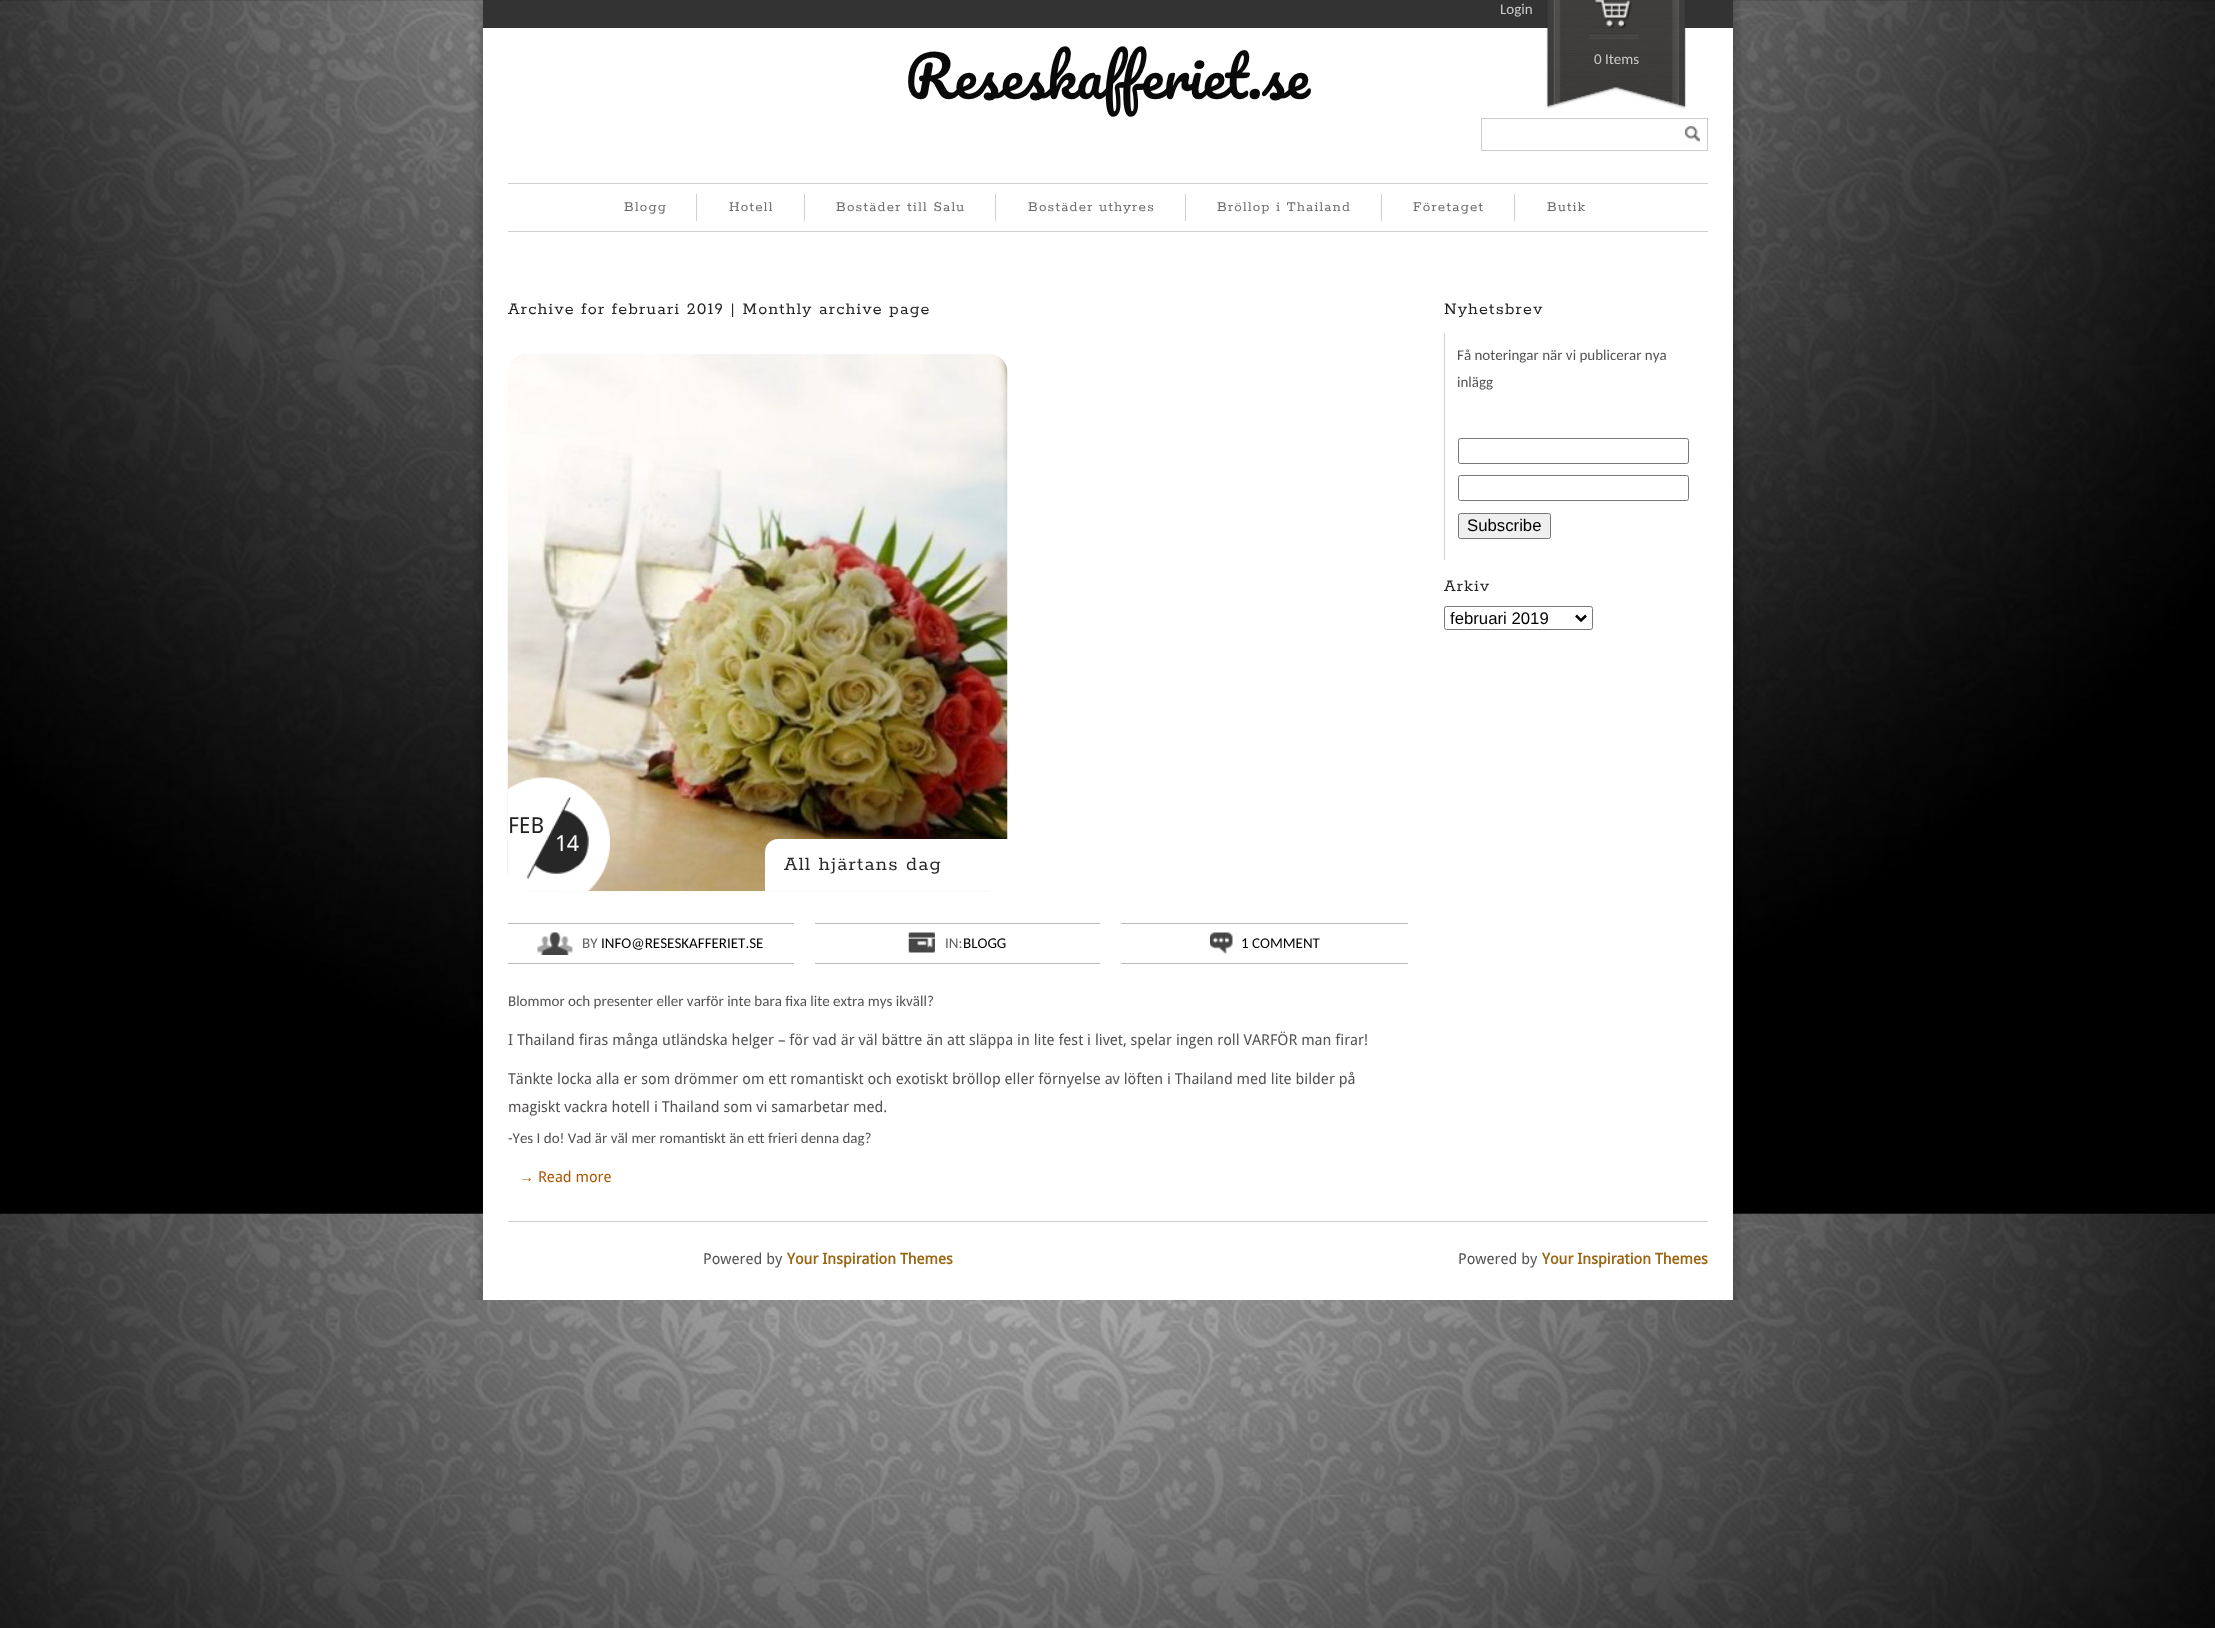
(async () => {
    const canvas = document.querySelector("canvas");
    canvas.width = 2215;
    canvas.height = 1628;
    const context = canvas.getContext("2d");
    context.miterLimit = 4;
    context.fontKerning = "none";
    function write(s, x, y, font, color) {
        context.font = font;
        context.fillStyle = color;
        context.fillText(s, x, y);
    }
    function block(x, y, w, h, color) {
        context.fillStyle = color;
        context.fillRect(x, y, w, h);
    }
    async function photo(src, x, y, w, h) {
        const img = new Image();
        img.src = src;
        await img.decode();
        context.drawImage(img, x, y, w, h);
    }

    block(0, 0, 2215, 1628, "rgb(255, 255, 255)");
    await photo("media/1.png", 0, 0, 2215, 1628);
    await photo("media/2.png", 473, 0, 1268, 1300);
    block(483, 28, 1250, 1272, "rgb(255, 255, 255)");
    block(483, 0, 1250, 28, "rgb(51, 51, 51)");
    write("Login", 1500, 14, "15px Carlito", "rgb(204, 202, 202)");
    await photo("media/3.png", 1546, 0, 140, 109);
    write("0 Items", 1594, 64, "15px Carlito", "rgb(204, 202, 202)");
    write("Reseskafferiet.se", 905, 99, "56.25px Pacifico", "rgb(9, 9, 9)");
    context.strokeStyle = "rgb(204, 204, 204)";
    context.strokeRect(1481.5, 118.5, 226, 32);
    await photo("media/4.png", 1685, 126, 15, 16);
    block(508, 183, 1200, 1, "rgb(207, 207, 207)");
    block(508, 231, 1200, 1, "rgb(207, 207, 207)");
    context.letterSpacing = "1.25px";
    write("Blogg", 624, 211, "600 15px Rokkitt", "rgb(108, 108, 108)");
    block(696, 194, 1, 27, "rgb(207, 207, 207)");
    write("Hotell", 729, 211, "600 15px Rokkitt", "rgb(108, 108, 108)");
    block(804, 194, 1, 27, "rgb(207, 207, 207)");
    write("Bostäder till Salu", 836, 211, "600 15px Rokkitt", "rgb(108, 108, 108)");
    block(995, 194, 1, 27, "rgb(207, 207, 207)");
    write("Bostäder uthyres", 1028, 211, "600 15px Rokkitt", "rgb(108, 108, 108)");
    block(1185, 194, 1, 27, "rgb(207, 207, 207)");
    write("Bröllop i Thailand", 1217, 211, "600 15px Rokkitt", "rgb(108, 108, 108)");
    block(1381, 194, 1, 27, "rgb(207, 207, 207)");
    write("Företaget", 1413, 211, "600 15px Rokkitt", "rgb(108, 108, 108)");
    block(1514, 194, 1, 27, "rgb(207, 207, 207)");
    write("Butik", 1547, 211, "600 15px Rokkitt", "rgb(108, 108, 108)");
    write("Archive for februari 2019 | Monthly archive page", 508, 314, "600 18px Rokkitt", "rgb(35, 34, 33)");
    await photo("media/5.png", 507, 354, 501, 538);
    await photo("media/6.png", 507, 777, 103, 114);
    context.letterSpacing = "0px";
    write("FEB", 508, 833, "22px Droid Sans", "rgb(35, 34, 33)");
    write("14", 555, 851, "22px Droid Sans", "rgb(255, 255, 255)");
    context.beginPath();
    context.roundRect(765, 839, 643, 52, [13, 0, 0, 0]);
    context.fill();
    context.letterSpacing = "1.25px";
    write("All hjärtans dag", 784, 870, "600 21px Rokkitt", "rgb(43, 40, 40)");
    block(508, 923, 286, 1, "rgb(186, 186, 186)");
    block(508, 963, 286, 1, "rgb(186, 186, 186)");
    await photo("media/7.png", 537, 932, 36, 23);
    context.letterSpacing = "0px";
    write("BY", 582, 948, "15px Carlito", "rgb(99, 96, 96)");
    write("INFO@RESESKAFFERIET.SE", 601, 948, "15px Carlito", "rgb(0, 0, 0)");
    block(815, 923, 285, 1, "rgb(186, 186, 186)");
    block(815, 963, 285, 1, "rgb(186, 186, 186)");
    await photo("media/8.png", 908, 932, 27, 21);
    write("IN:", 945, 948, "15px Carlito", "rgb(99, 96, 96)");
    write("BLOGG", 963, 948, "15px Carlito", "rgb(0, 0, 0)");
    block(1121, 923, 287, 1, "rgb(186, 186, 186)");
    block(1121, 963, 287, 1, "rgb(186, 186, 186)");
    await photo("media/9.png", 1210, 932, 23, 22);
    write("1 COMMENT", 1241, 948, "15px Carlito", "rgb(0, 0, 0)");
    write("Blommor och presenter eller varför inte bara fixa lite extra mys ikväll?", 508, 1006, "15px Carlito", "rgb(84, 82, 82)");
    write("I Thailand firas många utländska helger – för vad är väl bättre än att släppa in lite fest i livet, spelar ingen roll VARFÖR man firar!", 508, 1045, "15px Droid Sans", "rgb(84, 82, 82)");
    write("Tänkte locka alla er som drömmer om ett romantiskt och exotiskt bröllop eller förnyelse av löften i Thailand med lite bilder på", 508, 1084, "15px Droid Sans", "rgb(84, 82, 82)");
    write("magiskt vackra hotell i Thailand som vi samarbetar med.", 508, 1112, "15px Droid Sans", "rgb(84, 82, 82)");
    write("-Yes I do! Vad är väl mer romantiskt än ett", 508, 1143, "15px Carlito", "rgb(84, 82, 82)");
    write("frieri denna dag?", 768, 1143, "15px Carlito", "rgb(84, 82, 82)");
    write("→", 519, 1182, "15px Liberation Sans", "rgb(171, 87, 5)");
    write("Read more", 538, 1182, "15px Droid Sans", "rgb(171, 87, 5)");
    context.letterSpacing = "1.25px";
    write("Nyhetsbrev", 1444, 314, "600 18px Rokkitt", "rgb(35, 34, 33)");
    block(1444, 333, 1, 227, "rgb(209, 207, 207)");
    context.letterSpacing = "0px";
    write("Få noteringar när vi publicerar nya", 1457, 360, "15px Carlito", "rgb(84, 82, 82)");
    write("inlägg", 1457, 387, "15px Carlito", "rgb(84, 82, 82)");
    context.beginPath();
    context.roundRect(1458.5, 438.5, 230, 25, 2);
    context.strokeStyle = "rgb(118, 118, 118)";
    context.stroke();
    context.beginPath();
    context.roundRect(1458.5, 475.5, 230, 25, 2);
    context.stroke();
    context.fillStyle = "rgb(239, 239, 239)";
    context.beginPath();
    context.roundRect(1458.5, 513.5, 92, 25, 2);
    context.fill();
    context.stroke();
    write("Subscribe", 1467, 531, "16.75px Liberation Sans", "rgb(0, 0, 0)");
    context.letterSpacing = "1.25px";
    write("Arkiv", 1444, 591, "600 18px Rokkitt", "rgb(35, 34, 33)");
    context.beginPath();
    context.roundRect(1444.5, 606.5, 148, 23, 2);
    context.stroke();
    context.beginPath();
    context.moveTo(1576, 615.5);
    context.lineTo(1581, 620.5);
    context.lineTo(1586, 615.5);
    context.strokeStyle = "rgb(0, 0, 0)";
    context.lineWidth = 2.5;
    context.stroke();
    context.letterSpacing = "0px";
    write("februari 2019", 1450, 624, "16.75px Liberation Sans", "rgb(0, 0, 0)");
    block(508, 1221, 1200, 1, "rgb(207, 207, 207)");
    write("Powered by", 703, 1264, "15px Droid Sans", "rgb(84, 82, 82)");
    write("Your Inspiration Themes", 787, 1264, "bold 15px Droid Sans", "rgb(154, 102, 20)");
    write("Powered by", 1458, 1264, "15px Droid Sans", "rgb(84, 82, 82)");
    write("Your Inspiration Themes", 1542, 1264, "bold 15px Droid Sans", "rgb(154, 102, 20)");
})();
